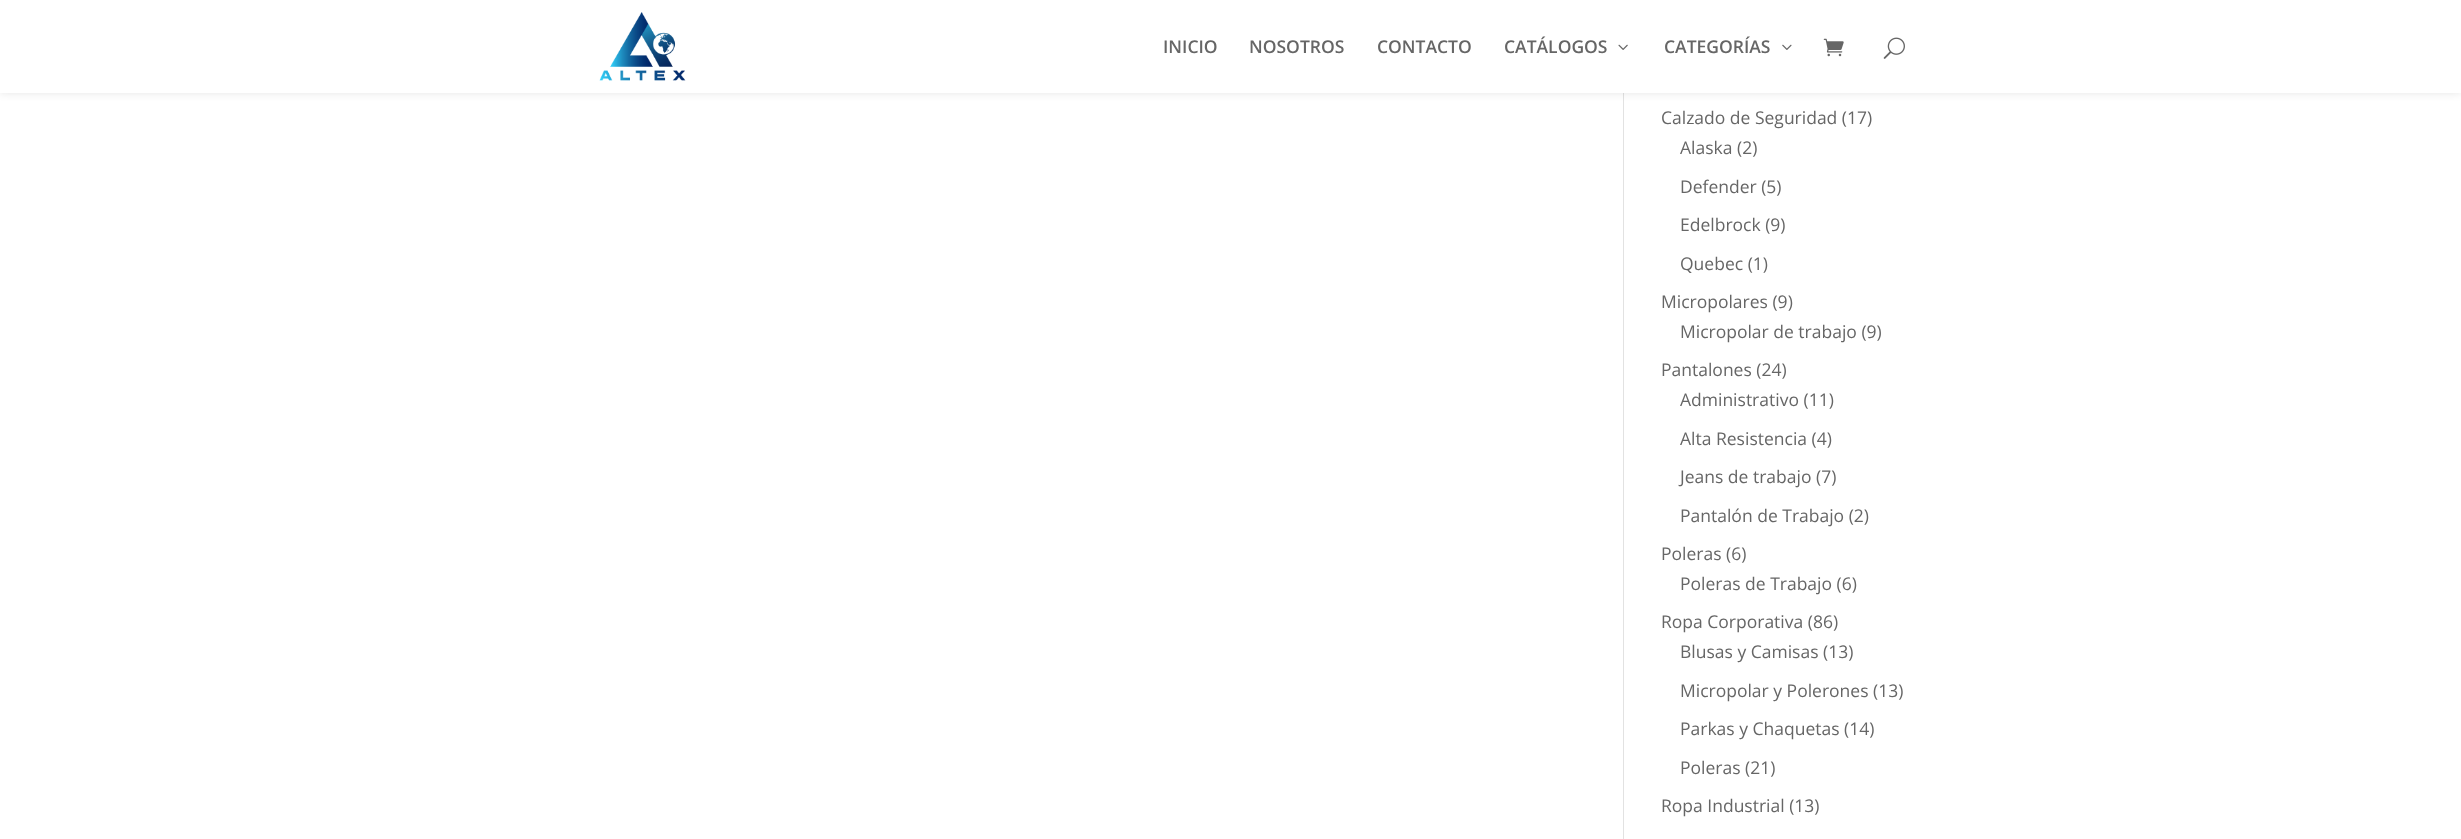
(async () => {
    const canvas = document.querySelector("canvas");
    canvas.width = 2461;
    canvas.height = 839;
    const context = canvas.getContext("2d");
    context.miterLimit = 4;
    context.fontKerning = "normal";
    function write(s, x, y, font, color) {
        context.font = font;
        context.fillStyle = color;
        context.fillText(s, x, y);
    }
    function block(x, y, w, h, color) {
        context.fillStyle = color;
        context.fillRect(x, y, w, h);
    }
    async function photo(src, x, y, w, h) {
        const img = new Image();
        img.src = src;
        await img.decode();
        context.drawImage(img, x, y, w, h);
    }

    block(0, 0, 2461, 839, "rgb(255, 255, 255)");
    block(1623, 93, 1, 746, "rgb(226, 226, 226)");
    context.fillStyle = "rgba(0, 0, 0, 0.1)";
    context.filter = "blur(4.5px)";
    context.beginPath();
    context.rect(0, 0, 2461, 93);
    context.fill();
    context.filter = "none";
    block(0, 0, 2461, 93, "rgb(255, 255, 255)");
    await photo("media/1.png", 599, 12, 87, 69);
    write("INICIO", 1163, 53, "600 17.5px Open Sans", "rgb(102, 102, 102)");
    write("NOSOTROS", 1249, 53, "600 17.5px Open Sans", "rgb(102, 102, 102)");
    write("CONTACTO", 1377, 53, "600 17.5px Open Sans", "rgb(102, 102, 102)");
    write("CATÁLOGOS", 1504, 53, "600 17.5px Open Sans", "rgb(102, 102, 102)");
    await photo("media/2.png", 1618, 44, 10, 6);
    write("CATEGORÍAS", 1664, 53, "600 17.5px Open Sans", "rgb(102, 102, 102)");
    await photo("media/3.png", 1782, 44, 10, 6);
    await photo("media/4.png", 1823, 38, 21, 19);
    await photo("media/5.png", 1883, 37, 22, 22);
    write("Calzado de Seguridad (17)", 1661, 124, "17.5px Open Sans", "rgb(102, 102, 102)");
    write("Alaska (2)", 1680, 154, "17.5px Open Sans", "rgb(102, 102, 102)");
    write("Defender (5)", 1680, 193, "17.5px Open Sans", "rgb(102, 102, 102)");
    write("Edelbrock (9)", 1680, 231, "17.5px Open Sans", "rgb(102, 102, 102)");
    write("Quebec (1)", 1680, 270, "17.5px Open Sans", "rgb(102, 102, 102)");
    write("Micropolares (9)", 1661, 308, "17.5px Open Sans", "rgb(102, 102, 102)");
    write("Micropolar de trabajo (9)", 1680, 338, "17.5px Open Sans", "rgb(102, 102, 102)");
    write("Pantalones (24)", 1661, 376, "17.5px Open Sans", "rgb(102, 102, 102)");
    write("Administrativo (11)", 1680, 406, "17.5px Open Sans", "rgb(102, 102, 102)");
    write("Alta Resistencia (4)", 1680, 445, "17.5px Open Sans", "rgb(102, 102, 102)");
    write("Jeans de trabajo (7)", 1680, 483, "17.5px Open Sans", "rgb(102, 102, 102)");
    write("Pantalón de Trabajo (2)", 1680, 522, "17.5px Open Sans", "rgb(102, 102, 102)");
    write("Poleras (6)", 1661, 560, "17.5px Open Sans", "rgb(102, 102, 102)");
    write("Poleras de Trabajo (6)", 1680, 590, "17.5px Open Sans", "rgb(102, 102, 102)");
    write("Ropa Corporativa (86)", 1661, 628, "17.5px Open Sans", "rgb(102, 102, 102)");
    write("Blusas y Camisas (13)", 1680, 658, "17.5px Open Sans", "rgb(102, 102, 102)");
    write("Micropolar y Polerones (13)", 1680, 697, "17.5px Open Sans", "rgb(102, 102, 102)");
    write("Parkas y Chaquetas (14)", 1680, 735, "17.5px Open Sans", "rgb(102, 102, 102)");
    write("Poleras (21)", 1680, 774, "17.5px Open Sans", "rgb(102, 102, 102)");
    write("Ropa Industrial (13)", 1661, 812, "17.5px Open Sans", "rgb(102, 102, 102)");
})();
